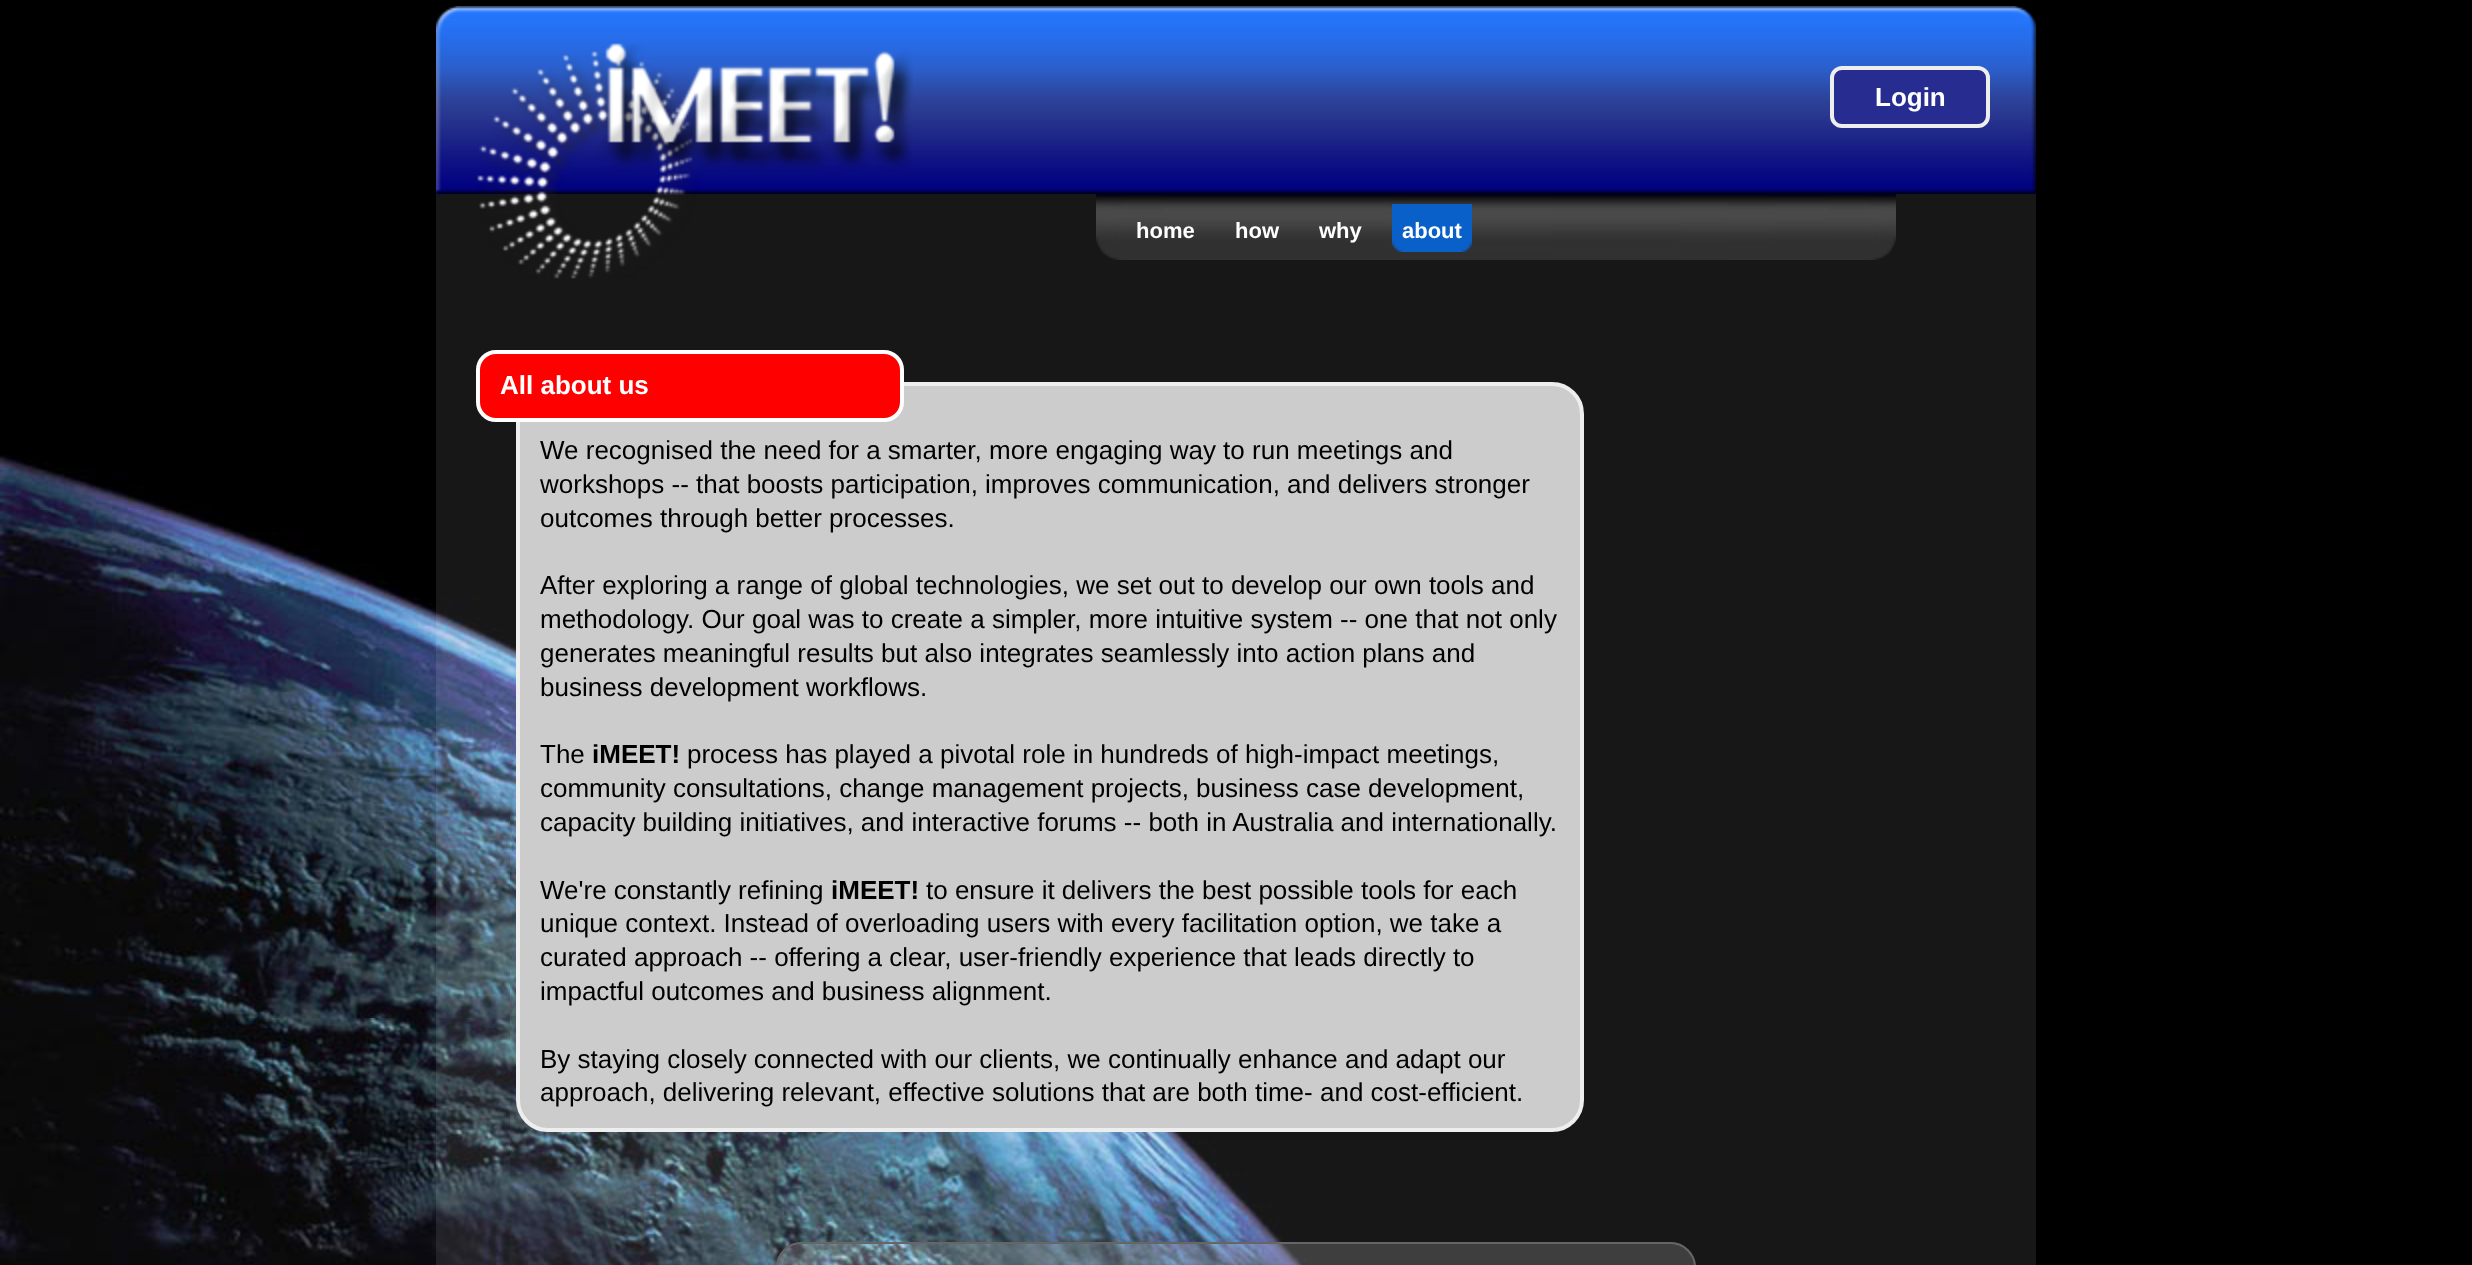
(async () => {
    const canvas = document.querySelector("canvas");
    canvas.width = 2472;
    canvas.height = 1265;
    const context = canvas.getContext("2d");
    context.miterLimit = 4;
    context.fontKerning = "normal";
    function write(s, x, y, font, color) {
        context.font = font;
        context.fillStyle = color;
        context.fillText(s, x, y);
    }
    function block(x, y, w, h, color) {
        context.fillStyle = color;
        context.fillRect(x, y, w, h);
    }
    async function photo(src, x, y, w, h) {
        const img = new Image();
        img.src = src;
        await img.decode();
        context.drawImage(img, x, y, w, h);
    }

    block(0, 0, 2472, 1265, "rgb(0, 0, 0)");
    await photo("media/1.png", 0, 455, 1312, 810);
    await photo("media/3.png", 436, 6, 1600, 188);
    block(436, 194, 1600, 1071, "rgba(255, 255, 255, 0.09)");
    await photo("media/2.png", 477, 43, 436, 236);
    context.fillStyle = "rgb(39, 44, 144)";
    context.beginPath();
    context.roundRect(1832, 68, 156, 58, 10);
    context.fill();
    context.strokeStyle = "rgb(238, 238, 238)";
    context.lineWidth = 4;
    context.stroke();
    write("Login", 1875, 106, "bold 26px Liberation Sans", "rgb(255, 255, 255)");
    await photo("media/4.png", 1096, 194, 800, 66);
    await photo("media/5.png", 1462, 204, 10, 48);
    await photo("media/6.png", 1392, 204, 70, 48);
    write("home", 1136, 238, "bold 22px Liberation Sans", "rgb(255, 255, 255)");
    write("how", 1235, 238, "bold 22px Liberation Sans", "rgb(255, 255, 255)");
    write("why", 1319, 238, "bold 22px Liberation Sans", "rgb(255, 255, 255)");
    write("about", 1402, 238, "bold 22px Liberation Sans", "rgb(255, 255, 255)");
    context.fillStyle = "rgb(204, 204, 204)";
    context.beginPath();
    context.roundRect(518, 384, 1064, 746, 30);
    context.fill();
    context.stroke();
    context.fillStyle = "rgb(255, 0, 0)";
    context.beginPath();
    context.roundRect(478, 352, 424, 68, 18);
    context.fill();
    context.strokeStyle = "rgb(255, 255, 255)";
    context.stroke();
    write("All about us", 500, 394, "bold 26px Liberation Sans", "rgb(255, 255, 255)");
    write("We recognised the need for a smarter, more engaging way to run meetings and", 540, 459, "26px Liberation Sans", "rgb(0, 0, 0)");
    write("workshops -- that boosts participation, improves communication, and delivers stronger", 540, 493, "26px Liberation Sans", "rgb(0, 0, 0)");
    write("outcomes through better processes.", 540, 527, "26px Liberation Sans", "rgb(0, 0, 0)");
    write("After exploring a range of global technologies, we set out to develop our own tools and", 540, 594, "26px Liberation Sans", "rgb(0, 0, 0)");
    write("methodology. Our goal was to create a simpler, more intuitive system -- one that not only", 540, 628, "26px Liberation Sans", "rgb(0, 0, 0)");
    write("generates meaningful results but also integrates seamlessly into action plans and", 540, 662, "26px Liberation Sans", "rgb(0, 0, 0)");
    write("business development workflows.", 540, 696, "26px Liberation Sans", "rgb(0, 0, 0)");
    write("The", 540, 763, "26px Liberation Sans", "rgb(0, 0, 0)");
    write("iMEET!", 592, 763, "bold 26px Liberation Sans", "rgb(0, 0, 0)");
    write("process has played a pivotal role in hundreds of high-impact meetings,", 687, 763, "26px Liberation Sans", "rgb(0, 0, 0)");
    write("community consultations, change management projects, business case development,", 540, 797, "26px Liberation Sans", "rgb(0, 0, 0)");
    write("capacity building initiatives, and interactive forums -- both in Australia and internationally.", 540, 831, "26px Liberation Sans", "rgb(0, 0, 0)");
    write("We're constantly refining", 540, 899, "26px Liberation Sans", "rgb(0, 0, 0)");
    write("iMEET!", 831, 899, "bold 26px Liberation Sans", "rgb(0, 0, 0)");
    write("to ensure it delivers the best possible tools for each", 926, 899, "26px Liberation Sans", "rgb(0, 0, 0)");
    write("unique context. Instead of overloading users with every facilitation option, we take a", 540, 932, "26px Liberation Sans", "rgb(0, 0, 0)");
    write("curated approach -- offering a clear, user-friendly experience that leads directly to", 540, 966, "26px Liberation Sans", "rgb(0, 0, 0)");
    write("impactful outcomes and business alignment.", 540, 1000, "26px Liberation Sans", "rgb(0, 0, 0)");
    write("By staying closely connected with our clients, we continually enhance and adapt our", 540, 1068, "26px Liberation Sans", "rgb(0, 0, 0)");
    write("approach, delivering relevant, effective solutions that are both time- and cost-efficient.", 540, 1101, "26px Liberation Sans", "rgb(0, 0, 0)");
    await photo("media/7.png", 776, 1242, 920, 23);
    context.beginPath();
    context.roundRect(777, 1243, 918, 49, 25);
    context.strokeStyle = "rgb(102, 102, 102)";
    context.lineWidth = 2;
    context.stroke();
})();
